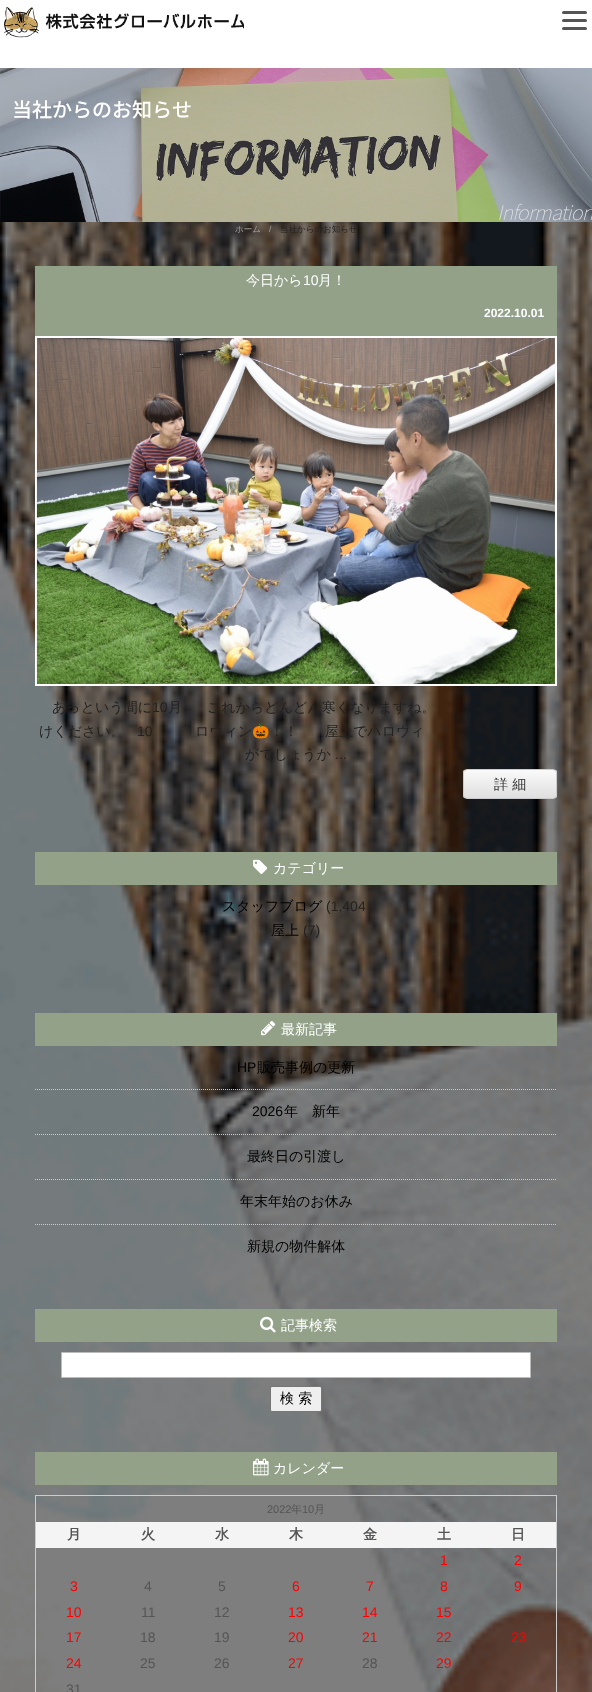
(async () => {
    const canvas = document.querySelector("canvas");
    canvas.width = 592;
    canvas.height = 1692;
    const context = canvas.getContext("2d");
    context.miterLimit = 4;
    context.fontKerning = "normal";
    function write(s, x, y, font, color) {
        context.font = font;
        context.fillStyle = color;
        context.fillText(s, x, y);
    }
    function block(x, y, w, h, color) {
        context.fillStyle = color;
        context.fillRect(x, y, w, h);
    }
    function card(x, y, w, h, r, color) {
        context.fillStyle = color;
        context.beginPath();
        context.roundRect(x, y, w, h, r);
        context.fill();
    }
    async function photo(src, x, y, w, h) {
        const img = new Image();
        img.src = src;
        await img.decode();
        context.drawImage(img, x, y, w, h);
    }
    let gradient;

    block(0, 0, 592, 1692, "rgb(255, 255, 255)");
    await photo("media/1.png", 4, 7, 240, 31);
    card(562, 11, 25, 3, 1.5, "rgb(85, 85, 85)");
    card(562, 19, 25, 3, 1.5, "rgb(85, 85, 85)");
    card(562, 27, 25, 3, 1.5, "rgb(85, 85, 85)");
    await photo("media/2.png", 0, 222, 592, 1470);
    await photo("media/3.png", 0, 68, 592, 154);
    write("当社からのお知らせ", 12, 117, "100 20px Noto Sans JP", "rgb(255, 255, 255)");
    context.letterSpacing = "-0.75px";
    write("Information", 497, 220, "italic 100 20px Noto Sans JP", "rgb(223, 225, 227)");
    context.letterSpacing = "0px";
    write("ホーム", 235, 232, "500 8.5px WenQuanYi Zen Hei", "rgb(163, 163, 163)");
    write("/", 269, 232, "8.5px Liberation Sans", "rgb(163, 163, 163)");
    write("当社からのお知らせ", 280, 232, "500 8.5px WenQuanYi Zen Hei", "rgb(34, 34, 34)");
    block(35, 266, 522, 70, "rgb(146, 161, 136)");
    write("今日から", 246, 285, "500 14px WenQuanYi Zen Hei", "rgb(255, 255, 255)");
    write("10", 303, 285, "14px Liberation Sans", "rgb(255, 255, 255)");
    write("月！", 318, 285, "500 14px WenQuanYi Zen Hei", "rgb(255, 255, 255)");
    write("2022.10.01", 484, 317, "bold 12px Liberation Sans", "rgb(255, 255, 255)");
    block(35, 336, 522, 350, "rgb(255, 255, 255)");
    await photo("media/4.png", 36, 338, 519, 346);
    write("あっという間に", 52, 712, "500 14px WenQuanYi Zen Hei", "rgb(34, 34, 34)");
    write("10", 152, 712, "14px Liberation Sans", "rgb(34, 34, 34)");
    write("月", 168, 712, "500 14px WenQuanYi Zen Hei", "rgb(34, 34, 34)");
    write("これからどんどん寒くなりますね。", 207, 712, "500 14px WenQuanYi Zen Hei", "rgb(34, 34, 34)");
    write("けください。", 39, 736, "500 14px WenQuanYi Zen Hei", "rgb(34, 34, 34)");
    write("10", 137, 736, "14px Liberation Sans", "rgb(34, 34, 34)");
    write("ロウィン", 195, 736, "500 14px WenQuanYi Zen Hei", "rgb(34, 34, 34)");
    write("🎃", 252, 736, "14px Noto Color Emoji", "rgb(34, 34, 34)");
    write("！！", 270, 736, "500 14px WenQuanYi Zen Hei", "rgb(34, 34, 34)");
    write("屋上でハロウィ", 325, 736, "500 14px WenQuanYi Zen Hei", "rgb(34, 34, 34)");
    write("がでしょうか", 245, 759, "500 14px WenQuanYi Zen Hei", "rgb(34, 34, 34)");
    write("...", 335, 759, "14px Liberation Sans", "rgb(34, 34, 34)");
    context.save();
    context.beginPath();
    context.roundRect(463, 769, 94, 30, 4);
    context.clip();
    gradient = context.createLinearGradient(510, 770, 510, 798);
    gradient.addColorStop(0, "rgb(250, 250, 250)");
    gradient.addColorStop(1, "rgb(223, 223, 223)");
    context.fillStyle = gradient;
    context.fillRect(463, 770, 94, 28);
    context.restore();
    context.beginPath();
    context.roundRect(463.5, 769.5, 93, 29, 3.5);
    context.strokeStyle = "rgb(204, 204, 204)";
    context.stroke();
    write("詳 細", 494, 789, "500 14px WenQuanYi Zen Hei", "rgb(51, 51, 51)");
    block(35, 852, 522, 33, "rgb(146, 161, 136)");
    await photo("media/5.png", 253, 859, 15, 15);
    write("カテゴリー", 273, 873, "500 14px WenQuanYi Zen Hei", "rgb(255, 255, 255)");
    write("スタッフブログ", 222, 911, "500 14px WenQuanYi Zen Hei", "rgb(0, 0, 0)");
    write("(1,404", 326, 911, "14px Liberation Sans", "rgb(34, 34, 34)");
    write("屋上", 271, 935, "500 14px WenQuanYi Zen Hei", "rgb(0, 0, 0)");
    write("(7)", 303, 935, "14px Liberation Sans", "rgb(34, 34, 34)");
    block(35, 1013, 522, 33, "rgb(146, 161, 136)");
    await photo("media/6.png", 261, 1021, 15, 15);
    write("最新記事", 281, 1034, "500 14px WenQuanYi Zen Hei", "rgb(255, 255, 255)");
    context.beginPath();
    context.moveTo(35, 1089.5);
    context.lineTo(557, 1089.5);
    context.setLineDash([1, 1]);
    context.stroke();
    write("HP", 237, 1072, "14px Liberation Sans", "rgb(0, 0, 0)");
    write("販売事例の更新", 257, 1072, "500 14px WenQuanYi Zen Hei", "rgb(0, 0, 0)");
    context.beginPath();
    context.moveTo(35, 1134.5);
    context.lineTo(557, 1134.5);
    context.stroke();
    write("2026", 252, 1116, "14px Liberation Sans", "rgb(0, 0, 0)");
    write("年　新年", 284, 1116, "500 14px WenQuanYi Zen Hei", "rgb(0, 0, 0)");
    context.beginPath();
    context.moveTo(35, 1179.5);
    context.lineTo(557, 1179.5);
    context.stroke();
    write("最終日の引渡し", 247, 1161, "500 14px WenQuanYi Zen Hei", "rgb(0, 0, 0)");
    context.beginPath();
    context.moveTo(35, 1224.5);
    context.lineTo(557, 1224.5);
    context.stroke();
    write("年末年始のお休み", 240, 1206, "500 14px WenQuanYi Zen Hei", "rgb(0, 0, 0)");
    write("新規の物件解体", 247, 1251, "500 14px WenQuanYi Zen Hei", "rgb(0, 0, 0)");
    block(35, 1309, 522, 33, "rgb(146, 161, 136)");
    await photo("media/7.png", 260, 1316, 16, 17);
    write("記事検索", 281, 1330, "500 14px WenQuanYi Zen Hei", "rgb(255, 255, 255)");
    context.beginPath();
    context.rect(61.5, 1352.5, 469, 25);
    context.fill();
    context.strokeStyle = "rgb(187, 187, 187)";
    context.setLineDash([]);
    context.stroke();
    context.fillStyle = "rgb(239, 239, 239)";
    context.beginPath();
    context.roundRect(270.5, 1386.5, 51, 25, 1.5);
    context.fill();
    context.strokeStyle = "rgb(118, 118, 118)";
    context.stroke();
    write("検 索", 280, 1403, "500 14px WenQuanYi Zen Hei", "rgb(0, 0, 0)");
    block(35, 1452, 522, 33, "rgb(146, 161, 136)");
    await photo("media/8.png", 253, 1458, 16, 18);
    write("カレンダー", 273, 1473, "500 14px WenQuanYi Zen Hei", "rgb(255, 255, 255)");
    block(35, 1495, 522, 1, "rgb(204, 204, 204)");
    block(556, 1495, 1, 197, "rgb(204, 204, 204)");
    block(35, 1495, 1, 197, "rgb(204, 204, 204)");
    write("2022", 267, 1513, "11px Liberation Sans", "rgb(85, 85, 85)");
    write("年", 291, 1513, "500 11px WenQuanYi Zen Hei", "rgb(85, 85, 85)");
    write("10", 302, 1513, "11px Liberation Sans", "rgb(85, 85, 85)");
    write("月", 314, 1513, "500 11px WenQuanYi Zen Hei", "rgb(85, 85, 85)");
    block(36, 1522, 520, 26, "rgb(244, 244, 244)");
    write("月", 67, 1539, "bold 14px WenQuanYi Zen Hei", "rgb(85, 85, 85)");
    write("火", 141, 1539, "bold 14px WenQuanYi Zen Hei", "rgb(85, 85, 85)");
    write("水", 215, 1539, "bold 14px WenQuanYi Zen Hei", "rgb(85, 85, 85)");
    write("木", 289, 1539, "bold 14px WenQuanYi Zen Hei", "rgb(85, 85, 85)");
    write("金", 363, 1539, "bold 14px WenQuanYi Zen Hei", "rgb(85, 85, 85)");
    write("土", 437, 1539, "bold 14px WenQuanYi Zen Hei", "rgb(85, 85, 85)");
    write("日", 511, 1539, "bold 14px WenQuanYi Zen Hei", "rgb(85, 85, 85)");
    write("1", 440, 1565, "14px Liberation Sans", "rgb(255, 0, 0)");
    write("2", 514, 1565, "14px Liberation Sans", "rgb(255, 0, 0)");
    write("3", 70, 1591, "14px Liberation Sans", "rgb(255, 0, 0)");
    write("4", 144, 1591, "14px Liberation Sans", "rgb(85, 85, 85)");
    write("5", 218, 1591, "14px Liberation Sans", "rgb(85, 85, 85)");
    write("6", 292, 1591, "14px Liberation Sans", "rgb(255, 0, 0)");
    write("7", 366, 1591, "14px Liberation Sans", "rgb(255, 0, 0)");
    write("8", 440, 1591, "14px Liberation Sans", "rgb(255, 0, 0)");
    write("9", 514, 1591, "14px Liberation Sans", "rgb(255, 0, 0)");
    write("10", 66, 1617, "14px Liberation Sans", "rgb(255, 0, 0)");
    write("11", 141, 1617, "14px Liberation Sans", "rgb(85, 85, 85)");
    write("12", 214, 1617, "14px Liberation Sans", "rgb(85, 85, 85)");
    write("13", 288, 1617, "14px Liberation Sans", "rgb(255, 0, 0)");
    write("14", 362, 1617, "14px Liberation Sans", "rgb(255, 0, 0)");
    write("15", 436, 1617, "14px Liberation Sans", "rgb(255, 0, 0)");
    write("17", 66, 1642, "14px Liberation Sans", "rgb(255, 0, 0)");
    write("18", 140, 1642, "14px Liberation Sans", "rgb(85, 85, 85)");
    write("19", 214, 1642, "14px Liberation Sans", "rgb(85, 85, 85)");
    write("20", 288, 1642, "14px Liberation Sans", "rgb(255, 0, 0)");
    write("21", 362, 1642, "14px Liberation Sans", "rgb(255, 0, 0)");
    write("22", 436, 1642, "14px Liberation Sans", "rgb(255, 0, 0)");
    write("23", 511, 1642, "14px Liberation Sans", "rgb(255, 0, 0)");
    write("24", 66, 1668, "14px Liberation Sans", "rgb(255, 0, 0)");
    write("25", 140, 1668, "14px Liberation Sans", "rgb(85, 85, 85)");
    write("26", 214, 1668, "14px Liberation Sans", "rgb(85, 85, 85)");
    write("27", 288, 1668, "14px Liberation Sans", "rgb(255, 0, 0)");
    write("28", 362, 1668, "14px Liberation Sans", "rgb(85, 85, 85)");
    write("29", 436, 1668, "14px Liberation Sans", "rgb(255, 0, 0)");
    write("31", 66, 1694, "14px Liberation Sans", "rgb(85, 85, 85)");
})();
